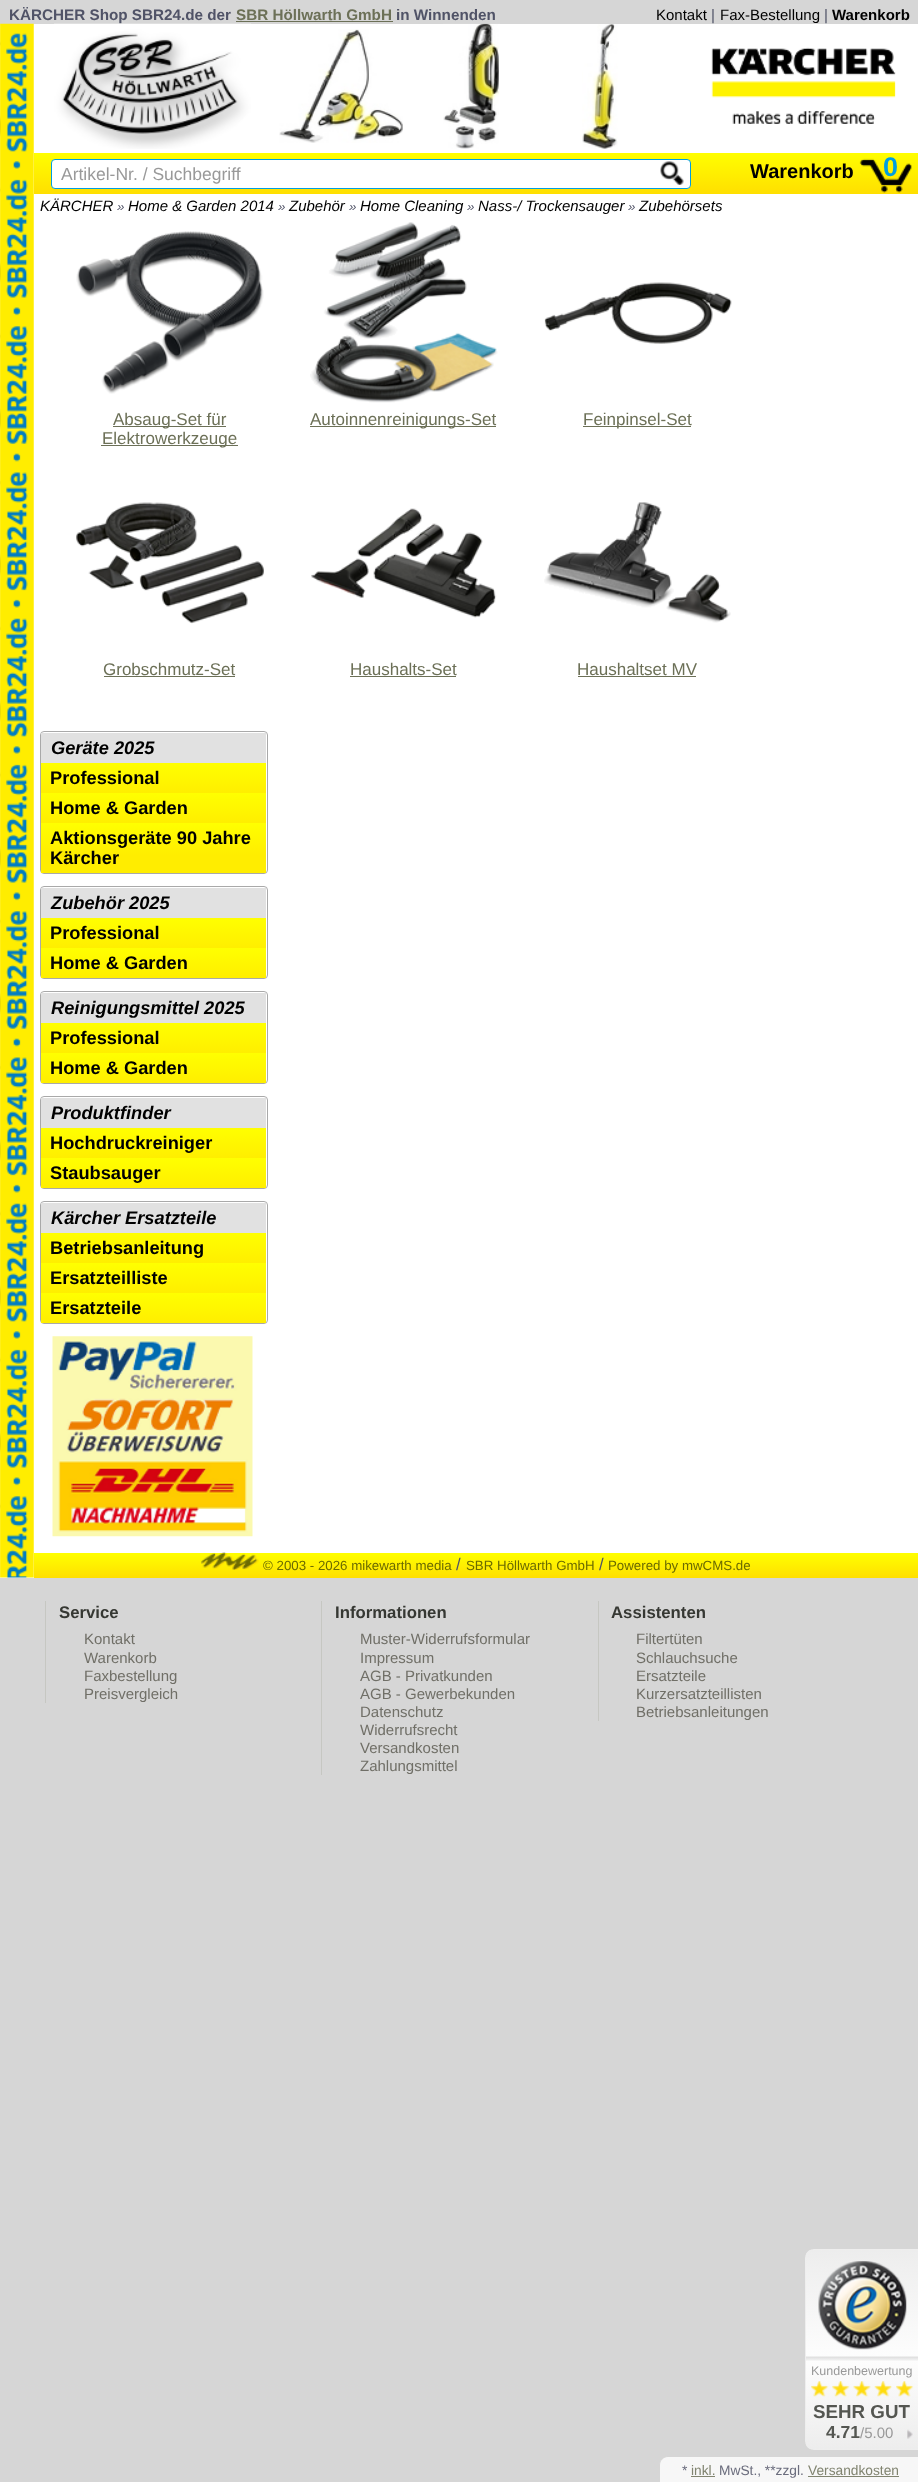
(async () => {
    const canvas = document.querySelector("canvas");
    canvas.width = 918;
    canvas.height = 2482;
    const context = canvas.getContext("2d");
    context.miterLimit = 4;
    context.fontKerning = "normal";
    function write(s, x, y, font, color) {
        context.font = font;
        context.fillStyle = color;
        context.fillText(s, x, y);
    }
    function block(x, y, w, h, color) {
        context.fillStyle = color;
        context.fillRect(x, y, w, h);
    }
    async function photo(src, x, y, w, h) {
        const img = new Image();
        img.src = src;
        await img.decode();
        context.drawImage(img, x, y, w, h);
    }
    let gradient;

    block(0, 0, 918, 2482, "rgb(214, 214, 214)");
    block(0, 24, 918, 1554, "rgb(255, 255, 255)");
    await photo("media/1.png", 0, 23, 34, 1555);
    write("KÄRCHER Shop SBR24.de der", 9, 20, "bold 15.25px Liberation Sans", "rgb(80, 83, 103)");
    write("SBR Höllwarth GmbH", 236, 20, "bold 15.25px Liberation Sans", "rgb(108, 112, 87)");
    block(236, 21, 157, 1, "rgb(108, 112, 87)");
    write("in Winnenden", 396, 20, "bold 15.25px Liberation Sans", "rgb(80, 83, 103)");
    write("Kontakt", 656, 20, "15px Liberation Sans", "rgb(0, 0, 0)");
    write("|", 711, 20, "15.25px Liberation Sans", "rgb(80, 83, 103)");
    write("Fax-Bestellung", 720, 20, "15px Liberation Sans", "rgb(0, 0, 0)");
    write("|", 824, 20, "15.25px Liberation Sans", "rgb(80, 83, 103)");
    write("Warenkorb", 832, 20, "bold 15px Liberation Sans", "rgb(0, 0, 0)");
    await photo("media/2.png", 54, 23, 197, 126);
    await photo("media/3.png", 279, 29, 124, 114);
    await photo("media/4.png", 443, 23, 57, 126);
    await photo("media/5.png", 582, 24, 36, 125);
    await photo("media/6.png", 711, 47, 185, 77);
    gradient = context.createLinearGradient(476, 152, 476, 194);
    gradient.addColorStop(0, "rgb(255, 255, 0)");
    gradient.addColorStop(1, "rgb(255, 223, 0)");
    context.fillStyle = gradient;
    context.fillRect(34, 153, 884, 41);
    context.fillStyle = "rgb(255, 255, 255)";
    context.beginPath();
    context.roundRect(51.5, 159.5, 639, 29, 3.5);
    context.fill();
    context.strokeStyle = "rgb(0, 158, 225)";
    context.stroke();
    write("Artikel-Nr. / Suchbegriff", 61, 180, "17.5px Liberation Sans", "rgb(153, 153, 153)");
    await photo("media/7.png", 660, 161, 24, 24);
    await photo("media/8.png", 859, 158, 53, 35);
    write("0", 883, 176, "bold 27px Liberation Sans", "rgb(0, 158, 225)");
    write("Warenkorb", 750, 178, "bold 20px Liberation Sans", "rgb(0, 0, 0)");
    write("KÄRCHER", 40, 211, "italic 15px Liberation Sans", "rgb(0, 0, 0)");
    write("»", 117, 211, "italic 13.3px Liberation Sans", "rgb(80, 83, 103)");
    write("Home & Garden 2014", 128, 211, "italic 15px Liberation Sans", "rgb(0, 0, 0)");
    write("»", 278, 211, "italic 13.3px Liberation Sans", "rgb(80, 83, 103)");
    write("Zubehör", 289, 211, "italic 15px Liberation Sans", "rgb(0, 0, 0)");
    write("»", 349, 211, "italic 13.3px Liberation Sans", "rgb(80, 83, 103)");
    write("Home Cleaning", 360, 211, "italic 15px Liberation Sans", "rgb(0, 0, 0)");
    write("»", 467, 211, "italic 13.3px Liberation Sans", "rgb(80, 83, 103)");
    write("Nass-/ Trockensauger", 478, 211, "italic 15px Liberation Sans", "rgb(0, 0, 0)");
    write("»", 628, 211, "italic 13.3px Liberation Sans", "rgb(80, 83, 103)");
    write("Zubehörsets", 639, 211, "italic 15px Liberation Sans", "rgb(0, 0, 0)");
    await photo("media/9.png", 76, 231, 188, 163);
    block(113, 426, 113, 1, "rgb(108, 112, 87)");
    write("Absaug-Set für", 113, 425, "17px Liberation Sans", "rgb(108, 112, 87)");
    block(101, 445, 137, 1, "rgb(108, 112, 87)");
    write("Elektrowerkzeuge", 102, 444, "17px Liberation Sans", "rgb(108, 112, 87)");
    await photo("media/10.png", 310, 222, 188, 181);
    block(310, 426, 186, 1, "rgb(108, 112, 87)");
    write("Autoinnenreinigungs-Set", 310, 425, "17px Liberation Sans", "rgb(108, 112, 87)");
    await photo("media/11.png", 544, 282, 188, 62);
    block(583, 426, 108, 1, "rgb(108, 112, 87)");
    write("Feinpinsel-Set", 583, 425, "17px Liberation Sans", "rgb(108, 112, 87)");
    await photo("media/12.png", 76, 502, 188, 122);
    write("Grobschmutz-Set", 103, 675, "17px Liberation Sans", "rgb(108, 112, 87)");
    block(104, 676, 131, 1, "rgb(108, 112, 87)");
    await photo("media/13.png", 311, 508, 186, 110);
    write("Haushalts-Set", 350, 675, "17px Liberation Sans", "rgb(108, 112, 87)");
    block(350, 676, 106, 1, "rgb(108, 112, 87)");
    await photo("media/14.png", 544, 502, 187, 121);
    write("Haushaltset MV", 577, 675, "17px Liberation Sans", "rgb(108, 112, 87)");
    block(578, 676, 118, 1, "rgb(108, 112, 87)");
    context.beginPath();
    context.roundRect(40.5, 731.5, 227, 142, 3.5);
    context.strokeStyle = "rgb(169, 169, 169)";
    context.stroke();
    block(41, 733, 225, 30, "rgb(225, 225, 225)");
    write("Geräte 2025", 51, 754, "italic bold 18.25px Liberation Sans", "rgb(0, 0, 0)");
    gradient = context.createLinearGradient(154, 763, 154, 795);
    gradient.addColorStop(0, "rgb(255, 255, 0)");
    gradient.addColorStop(1, "rgb(255, 237, 0)");
    context.fillStyle = gradient;
    context.fillRect(41, 763, 225, 30);
    write("Professional", 50, 784, "bold 18.25px Liberation Sans", "rgb(0, 0, 0)");
    gradient = context.createLinearGradient(154, 793, 154, 825);
    gradient.addColorStop(0, "rgb(255, 255, 0)");
    gradient.addColorStop(1, "rgb(255, 237, 0)");
    context.fillStyle = gradient;
    context.fillRect(41, 793, 225, 30);
    write("Home & Garden", 50, 814, "bold 18.25px Liberation Sans", "rgb(0, 0, 0)");
    gradient = context.createLinearGradient(154, 823, 154, 873);
    gradient.addColorStop(0, "rgb(255, 255, 0)");
    gradient.addColorStop(0.65, "rgb(255, 237, 0)");
    context.fillStyle = gradient;
    context.fillRect(41, 823, 225, 50);
    write("Aktionsgeräte 90 Jahre", 50, 844, "bold 18.25px Liberation Sans", "rgb(0, 0, 0)");
    write("Kärcher", 50, 864, "bold 18.25px Liberation Sans", "rgb(0, 0, 0)");
    context.beginPath();
    context.roundRect(40.5, 886.5, 227, 92, 3.5);
    context.stroke();
    block(41, 888, 225, 30, "rgb(225, 225, 225)");
    write("Zubehör 2025", 51, 909, "italic bold 18.25px Liberation Sans", "rgb(0, 0, 0)");
    gradient = context.createLinearGradient(154, 918, 154, 950);
    gradient.addColorStop(0, "rgb(255, 255, 0)");
    gradient.addColorStop(1, "rgb(255, 237, 0)");
    context.fillStyle = gradient;
    context.fillRect(41, 918, 225, 30);
    write("Professional", 50, 939, "bold 18.25px Liberation Sans", "rgb(0, 0, 0)");
    gradient = context.createLinearGradient(154, 948, 154, 980);
    gradient.addColorStop(0, "rgb(255, 255, 0)");
    gradient.addColorStop(1, "rgb(255, 237, 0)");
    context.fillStyle = gradient;
    context.fillRect(41, 948, 225, 30);
    write("Home & Garden", 50, 969, "bold 18.25px Liberation Sans", "rgb(0, 0, 0)");
    context.beginPath();
    context.roundRect(40.5, 991.5, 227, 92, 3.5);
    context.stroke();
    block(41, 993, 225, 30, "rgb(225, 225, 225)");
    write("Reinigungsmittel 2025", 51, 1014, "italic bold 18.25px Liberation Sans", "rgb(0, 0, 0)");
    gradient = context.createLinearGradient(154, 1023, 154, 1055);
    gradient.addColorStop(0, "rgb(255, 255, 0)");
    gradient.addColorStop(1, "rgb(255, 237, 0)");
    context.fillStyle = gradient;
    context.fillRect(41, 1023, 225, 30);
    write("Professional", 50, 1044, "bold 18.25px Liberation Sans", "rgb(0, 0, 0)");
    gradient = context.createLinearGradient(154, 1053, 154, 1085);
    gradient.addColorStop(0, "rgb(255, 255, 0)");
    gradient.addColorStop(1, "rgb(255, 237, 0)");
    context.fillStyle = gradient;
    context.fillRect(41, 1053, 225, 30);
    write("Home & Garden", 50, 1074, "bold 18.25px Liberation Sans", "rgb(0, 0, 0)");
    context.beginPath();
    context.roundRect(40.5, 1096.5, 227, 92, 3.5);
    context.stroke();
    block(41, 1098, 225, 30, "rgb(225, 225, 225)");
    write("Produktfinder", 51, 1119, "italic bold 18.25px Liberation Sans", "rgb(0, 0, 0)");
    gradient = context.createLinearGradient(154, 1128, 154, 1160);
    gradient.addColorStop(0, "rgb(255, 255, 0)");
    gradient.addColorStop(1, "rgb(255, 237, 0)");
    context.fillStyle = gradient;
    context.fillRect(41, 1128, 225, 30);
    write("Hochdruckreiniger", 50, 1149, "bold 18.25px Liberation Sans", "rgb(0, 0, 0)");
    gradient = context.createLinearGradient(154, 1158, 154, 1190);
    gradient.addColorStop(0, "rgb(255, 255, 0)");
    gradient.addColorStop(1, "rgb(255, 237, 0)");
    context.fillStyle = gradient;
    context.fillRect(41, 1158, 225, 30);
    write("Staubsauger", 50, 1179, "bold 18.25px Liberation Sans", "rgb(0, 0, 0)");
    context.beginPath();
    context.roundRect(40.5, 1201.5, 227, 122, 3.5);
    context.stroke();
    block(41, 1203, 225, 30, "rgb(225, 225, 225)");
    write("Kärcher Ersatzteile", 51, 1224, "italic bold 18.25px Liberation Sans", "rgb(0, 0, 0)");
    gradient = context.createLinearGradient(154, 1233, 154, 1265);
    gradient.addColorStop(0, "rgb(255, 255, 0)");
    gradient.addColorStop(1, "rgb(255, 237, 0)");
    context.fillStyle = gradient;
    context.fillRect(41, 1233, 225, 30);
    write("Betriebsanleitung", 50, 1254, "bold 18.25px Liberation Sans", "rgb(0, 0, 0)");
    gradient = context.createLinearGradient(154, 1263, 154, 1295);
    gradient.addColorStop(0, "rgb(255, 255, 0)");
    gradient.addColorStop(1, "rgb(255, 237, 0)");
    context.fillStyle = gradient;
    context.fillRect(41, 1263, 225, 30);
    write("Ersatzteilliste", 50, 1284, "bold 18.25px Liberation Sans", "rgb(0, 0, 0)");
    gradient = context.createLinearGradient(154, 1293, 154, 1325);
    gradient.addColorStop(0, "rgb(255, 255, 0)");
    gradient.addColorStop(1, "rgb(255, 237, 0)");
    context.fillStyle = gradient;
    context.fillRect(41, 1293, 225, 30);
    write("Ersatzteile", 50, 1314, "bold 18.25px Liberation Sans", "rgb(0, 0, 0)");
    await photo("media/15.png", 52, 1336, 201, 201);
    gradient = context.createLinearGradient(476, 1553, 476, 1578);
    gradient.addColorStop(0, "rgb(255, 255, 0)");
    gradient.addColorStop(1, "rgb(255, 223, 0)");
    context.fillStyle = gradient;
    context.fillRect(34, 1553, 884, 25);
    await photo("media/16.png", 201, 1552, 58, 18);
    write("© 2003 - 2026 mikewarth media", 263, 1570, "13.3px Liberation Sans", "rgb(107, 107, 0)");
    write("/", 456, 1570, "16.75px Liberation Sans", "rgb(80, 83, 103)");
    write("SBR Höllwarth GmbH", 466, 1570, "13.3px Liberation Sans", "rgb(107, 107, 0)");
    write("/", 599, 1570, "16.75px Liberation Sans", "rgb(80, 83, 103)");
    write("Powered by mwCMS.de", 608, 1570, "13.3px Liberation Sans", "rgb(107, 107, 0)");
    block(45, 1601, 1, 102, "rgb(198, 199, 194)");
    write("Service", 59, 1618, "bold 16.75px Liberation Sans", "rgb(54, 56, 51)");
    write("Kontakt", 84, 1644, "15px Liberation Sans", "rgb(112, 111, 103)");
    write("Warenkorb", 84, 1663, "15px Liberation Sans", "rgb(112, 111, 103)");
    write("Faxbestellung", 84, 1681, "15px Liberation Sans", "rgb(112, 111, 103)");
    write("Preisvergleich", 84, 1699, "15px Liberation Sans", "rgb(112, 111, 103)");
    block(321, 1601, 1, 174, "rgb(198, 199, 194)");
    write("Informationen", 335, 1618, "bold 16.75px Liberation Sans", "rgb(54, 56, 51)");
    write("Muster-Widerrufsformular", 360, 1644, "15px Liberation Sans", "rgb(112, 111, 103)");
    write("Impressum", 360, 1663, "15px Liberation Sans", "rgb(112, 111, 103)");
    write("AGB - Privatkunden", 360, 1681, "15px Liberation Sans", "rgb(112, 111, 103)");
    write("AGB - Gewerbekunden", 360, 1699, "15px Liberation Sans", "rgb(112, 111, 103)");
    write("Datenschutz", 360, 1717, "15px Liberation Sans", "rgb(112, 111, 103)");
    write("Widerrufsrecht", 360, 1735, "15px Liberation Sans", "rgb(112, 111, 103)");
    write("Versandkosten", 360, 1753, "15px Liberation Sans", "rgb(112, 111, 103)");
    write("Zahlungsmittel", 360, 1771, "15px Liberation Sans", "rgb(112, 111, 103)");
    block(598, 1601, 1, 120, "rgb(198, 199, 194)");
    write("Assistenten", 611, 1618, "bold 16.75px Liberation Sans", "rgb(54, 56, 51)");
    write("Filtertüten", 636, 1644, "15px Liberation Sans", "rgb(112, 111, 103)");
    write("Schlauchsuche", 636, 1663, "15px Liberation Sans", "rgb(112, 111, 103)");
    write("Ersatzteile", 636, 1681, "15px Liberation Sans", "rgb(112, 111, 103)");
    write("Kurzersatzteillisten", 636, 1699, "15px Liberation Sans", "rgb(112, 111, 103)");
    write("Betriebsanleitungen", 636, 1717, "15px Liberation Sans", "rgb(112, 111, 103)");
    context.save();
    context.beginPath();
    context.moveTo(814, 2249);
    context.lineTo(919, 2249);
    context.lineTo(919, 2450);
    context.lineTo(814, 2450);
    context.bezierCurveTo(809, 2450, 805, 2446, 805, 2441);
    context.lineTo(805, 2258);
    context.bezierCurveTo(805, 2253, 809, 2249, 814, 2249);
    context.closePath();
    context.clip();
    gradient = context.createLinearGradient(862, 2250, 862, 2449);
    gradient.addColorStop(0, "rgb(237, 237, 237)");
    gradient.addColorStop(0.53, "rgb(253, 253, 253)");
    gradient.addColorStop(0.54, "rgb(225, 225, 225)");
    gradient.addColorStop(0.55, "rgb(237, 237, 237)");
    gradient.addColorStop(0.56, "rgb(253, 253, 253)");
    gradient.addColorStop(1, "rgb(237, 237, 237)");
    context.fillStyle = gradient;
    context.fillRect(806, 2250, 112, 199);
    context.restore();
    context.beginPath();
    context.moveTo(814, 2249.5);
    context.lineTo(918.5, 2249.5);
    context.lineTo(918.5, 2449.5);
    context.lineTo(814, 2449.5);
    context.bezierCurveTo(809.5, 2449.5, 805.5, 2445.5, 805.5, 2441);
    context.lineTo(805.5, 2258);
    context.bezierCurveTo(805.5, 2253.5, 809.5, 2249.5, 814, 2249.5);
    context.closePath();
    context.strokeStyle = "rgb(238, 238, 238)";
    context.stroke();
    await photo("media/17.png", 818, 2261, 89, 89);
    write("Kundenbewertung", 811, 2375, "12.5px Liberation Sans", "rgb(153, 153, 153)");
    await photo("media/18.png", 811, 2381, 18, 16);
    await photo("media/19.png", 832, 2381, 18, 16);
    await photo("media/20.png", 853, 2381, 18, 16);
    await photo("media/21.png", 874, 2381, 18, 16);
    await photo("media/22.png", 896, 2381, 18, 16);
    write("SEHR GUT", 813, 2418, "bold 18.75px Liberation Sans", "rgb(84, 86, 81)");
    write("4.71", 826, 2438, "bold 17.5px Liberation Sans", "rgb(84, 86, 81)");
    write("/5.00", 860, 2438, "15px Liberation Sans", "rgb(153, 153, 153)");
    await photo("media/23.png", 907, 2429, 6, 10);
    context.fillStyle = "rgb(247, 247, 247)";
    context.beginPath();
    context.moveTo(668, 2456.5);
    context.lineTo(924.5, 2456.5);
    context.lineTo(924.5, 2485.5);
    context.lineTo(659.5, 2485.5);
    context.lineTo(659.5, 2465);
    context.bezierCurveTo(659.5, 2460.5, 663.5, 2456.5, 668, 2456.5);
    context.closePath();
    context.fill();
    context.strokeStyle = "rgb(214, 214, 214)";
    context.stroke();
    write("*", 682, 2475, "13.75px Liberation Sans", "rgb(107, 109, 125)");
    write("inkl.", 691, 2475, "13.75px Liberation Sans", "rgb(129, 132, 112)");
    block(691, 2476, 24, 1, "rgb(129, 132, 112)");
    write("MwSt., **zzgl.", 719, 2475, "13.75px Liberation Sans", "rgb(107, 109, 125)");
    write("Versandkosten", 808, 2475, "13.75px Liberation Sans", "rgb(129, 132, 112)");
    block(808, 2476, 91, 1, "rgb(129, 132, 112)");
})();
